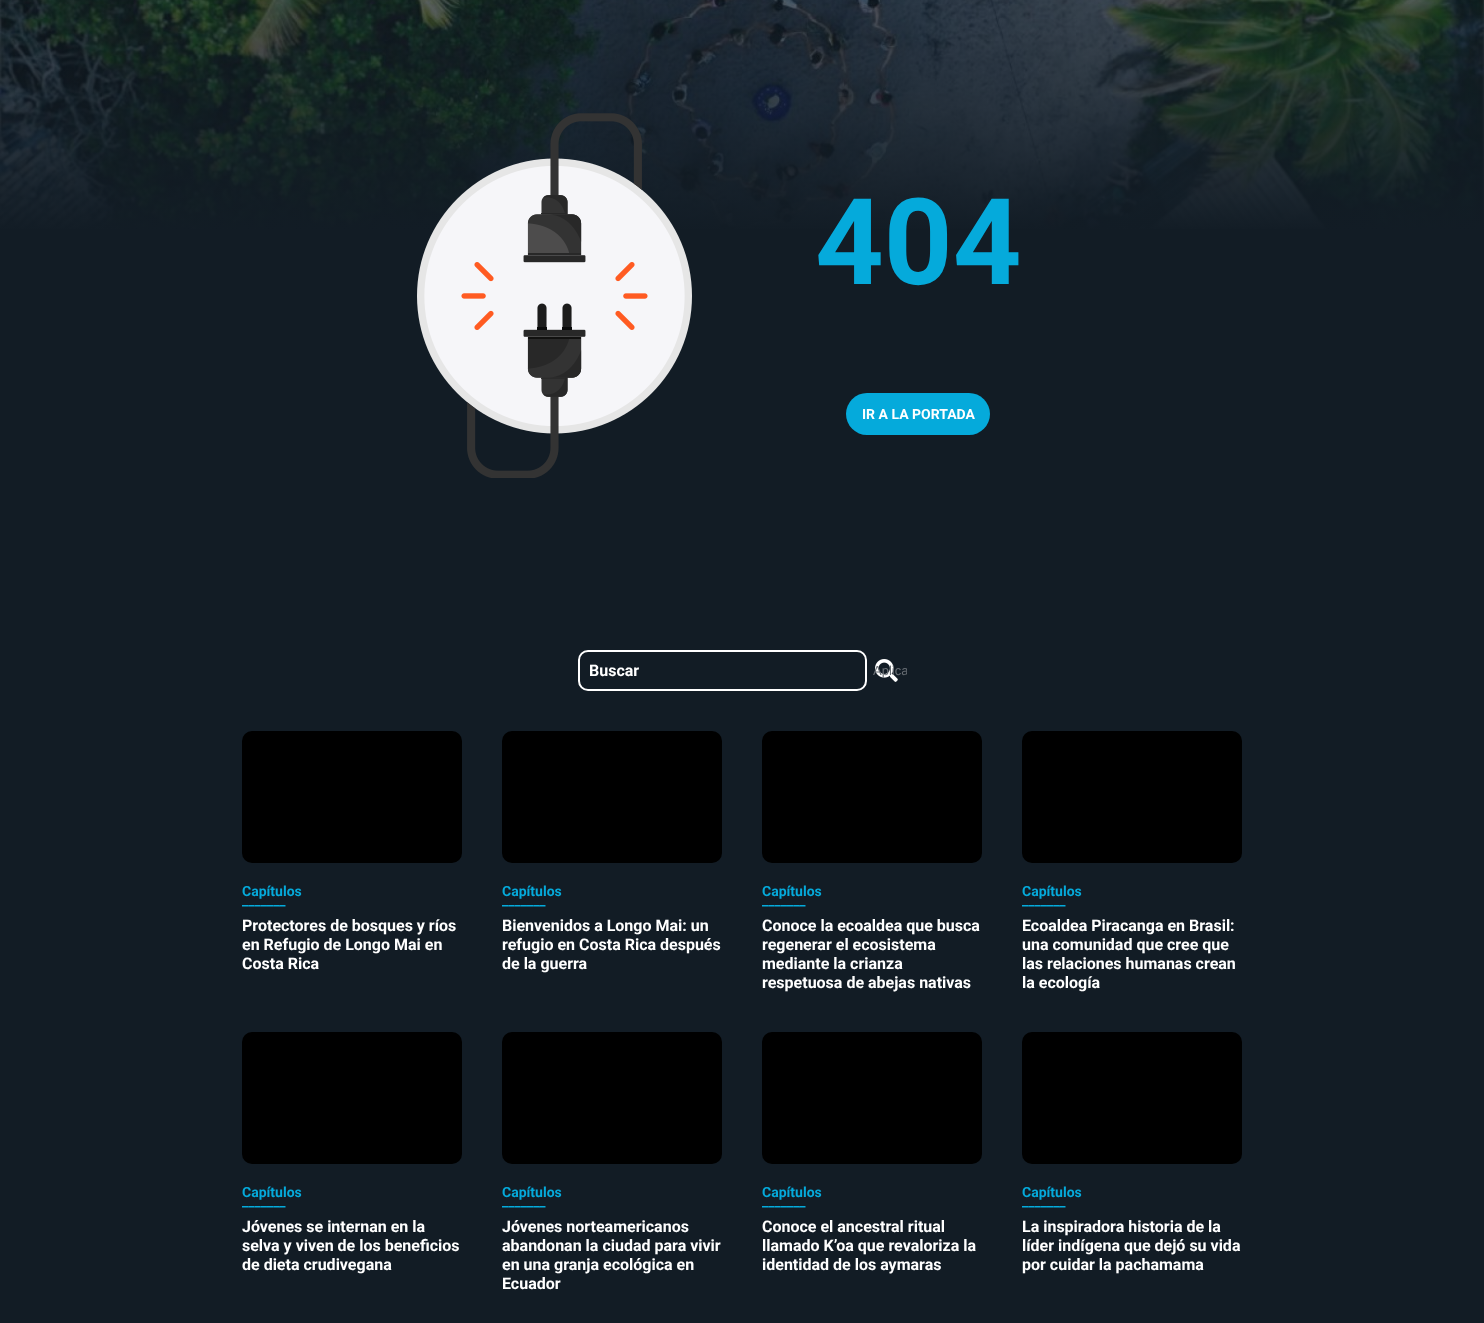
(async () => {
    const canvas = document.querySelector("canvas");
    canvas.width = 1484;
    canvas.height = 1323;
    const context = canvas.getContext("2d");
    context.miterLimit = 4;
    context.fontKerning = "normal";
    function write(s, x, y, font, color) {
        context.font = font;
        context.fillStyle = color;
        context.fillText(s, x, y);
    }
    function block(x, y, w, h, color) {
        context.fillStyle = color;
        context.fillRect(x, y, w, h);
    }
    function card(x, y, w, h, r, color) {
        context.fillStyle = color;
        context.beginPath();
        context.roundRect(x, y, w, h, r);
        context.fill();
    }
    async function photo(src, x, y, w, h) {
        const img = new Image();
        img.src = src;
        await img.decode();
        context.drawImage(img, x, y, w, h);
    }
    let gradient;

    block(0, 0, 1484, 1323, "rgb(18, 28, 37)");
    await photo("media/1.png", 0, 0, 1484, 229);
    gradient = context.createLinearGradient(742, -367, 742, 233);
    gradient.addColorStop(0, "rgba(18, 28, 37, 0)");
    gradient.addColorStop(1, "rgb(18, 28, 37)");
    context.fillStyle = gradient;
    context.fillRect(0, 0, 1484, 229);
    await photo("media/2.png", 417, 113, 275, 365);
    write("404", 815, 284, "bold 120px Roboto", "rgb(5, 170, 219)");
    card(846, 393, 144, 42, 21, "rgb(5, 170, 219)");
    write("IR A LA PORTADA", 862, 419, "bold 14px Roboto", "rgb(255, 255, 255)");
    context.beginPath();
    context.roundRect(579, 651, 287, 39, 9);
    context.strokeStyle = "rgb(255, 255, 255)";
    context.lineWidth = 2;
    context.stroke();
    write("Buscar", 589, 676, "bold 16px Roboto", "rgb(255, 255, 255)");
    await photo("media/3.png", 875, 659, 23, 23);
    context.save();
    context.beginPath();
    context.rect(867, 655, 40, 31);
    context.clip();
    write("Aplica", 873, 675, "13px Liberation Sans", "rgb(104, 110, 116)");
    context.restore();
    card(242, 731, 220, 132, 10, "rgb(0, 0, 0)");
    write("Capítulos", 242, 896, "bold 14px Roboto", "rgb(5, 170, 219)");
    write("_______", 242, 905, "bold 14px Roboto", "rgb(5, 170, 219)");
    write("Protectores de bosques y ríos", 242, 931, "bold 16px Roboto", "rgb(255, 255, 255)");
    write("en Refugio de Longo Mai en", 242, 950, "bold 16px Roboto", "rgb(255, 255, 255)");
    write("Costa Rica", 242, 969, "bold 16px Roboto", "rgb(255, 255, 255)");
    card(502, 731, 220, 132, 10, "rgb(0, 0, 0)");
    write("Capítulos", 502, 896, "bold 14px Roboto", "rgb(5, 170, 219)");
    write("_______", 502, 905, "bold 14px Roboto", "rgb(5, 170, 219)");
    write("Bienvenidos a Longo Mai: un", 502, 931, "bold 16px Roboto", "rgb(255, 255, 255)");
    write("refugio en Costa Rica después", 502, 950, "bold 16px Roboto", "rgb(255, 255, 255)");
    write("de la guerra", 502, 969, "bold 16px Roboto", "rgb(255, 255, 255)");
    card(762, 731, 220, 132, 10, "rgb(0, 0, 0)");
    write("Capítulos", 762, 896, "bold 14px Roboto", "rgb(5, 170, 219)");
    write("_______", 762, 905, "bold 14px Roboto", "rgb(5, 170, 219)");
    write("Conoce la ecoaldea que busca", 762, 931, "bold 16px Roboto", "rgb(255, 255, 255)");
    write("regenerar el ecosistema", 762, 950, "bold 16px Roboto", "rgb(255, 255, 255)");
    write("mediante la crianza", 762, 969, "bold 16px Roboto", "rgb(255, 255, 255)");
    write("respetuosa de abejas nativas", 762, 988, "bold 16px Roboto", "rgb(255, 255, 255)");
    card(1022, 731, 220, 132, 10, "rgb(0, 0, 0)");
    write("Capítulos", 1022, 896, "bold 14px Roboto", "rgb(5, 170, 219)");
    write("_______", 1022, 905, "bold 14px Roboto", "rgb(5, 170, 219)");
    write("Ecoaldea Piracanga en Brasil:", 1022, 931, "bold 16px Roboto", "rgb(255, 255, 255)");
    write("una comunidad que cree que", 1022, 950, "bold 16px Roboto", "rgb(255, 255, 255)");
    write("las relaciones humanas crean", 1022, 969, "bold 16px Roboto", "rgb(255, 255, 255)");
    write("la ecología", 1022, 988, "bold 16px Roboto", "rgb(255, 255, 255)");
    card(242, 1032, 220, 132, 10, "rgb(0, 0, 0)");
    write("Capítulos", 242, 1197, "bold 14px Roboto", "rgb(5, 170, 219)");
    write("_______", 242, 1206, "bold 14px Roboto", "rgb(5, 170, 219)");
    write("Jóvenes se internan en la", 242, 1232, "bold 16px Roboto", "rgb(255, 255, 255)");
    write("selva y viven de los beneficios", 242, 1251, "bold 16px Roboto", "rgb(255, 255, 255)");
    write("de dieta crudivegana", 242, 1270, "bold 16px Roboto", "rgb(255, 255, 255)");
    card(502, 1032, 220, 132, 10, "rgb(0, 0, 0)");
    write("Capítulos", 502, 1197, "bold 14px Roboto", "rgb(5, 170, 219)");
    write("_______", 502, 1206, "bold 14px Roboto", "rgb(5, 170, 219)");
    write("Jóvenes norteamericanos", 502, 1232, "bold 16px Roboto", "rgb(255, 255, 255)");
    write("abandonan la ciudad para vivir", 502, 1251, "bold 16px Roboto", "rgb(255, 255, 255)");
    write("en una granja ecológica en", 502, 1270, "bold 16px Roboto", "rgb(255, 255, 255)");
    write("Ecuador", 502, 1289, "bold 16px Roboto", "rgb(255, 255, 255)");
    card(762, 1032, 220, 132, 10, "rgb(0, 0, 0)");
    write("Capítulos", 762, 1197, "bold 14px Roboto", "rgb(5, 170, 219)");
    write("_______", 762, 1206, "bold 14px Roboto", "rgb(5, 170, 219)");
    write("Conoce el ancestral ritual", 762, 1232, "bold 16px Roboto", "rgb(255, 255, 255)");
    write("llamado K’oa que revaloriza la", 762, 1251, "bold 16px Roboto", "rgb(255, 255, 255)");
    write("identidad de los aymaras", 762, 1270, "bold 16px Roboto", "rgb(255, 255, 255)");
    card(1022, 1032, 220, 132, 10, "rgb(0, 0, 0)");
    write("Capítulos", 1022, 1197, "bold 14px Roboto", "rgb(5, 170, 219)");
    write("_______", 1022, 1206, "bold 14px Roboto", "rgb(5, 170, 219)");
    write("La inspiradora historia de la", 1022, 1232, "bold 16px Roboto", "rgb(255, 255, 255)");
    write("líder indígena que dejó su vida", 1022, 1251, "bold 16px Roboto", "rgb(255, 255, 255)");
    write("por cuidar la pachamama", 1022, 1270, "bold 16px Roboto", "rgb(255, 255, 255)");
})();
